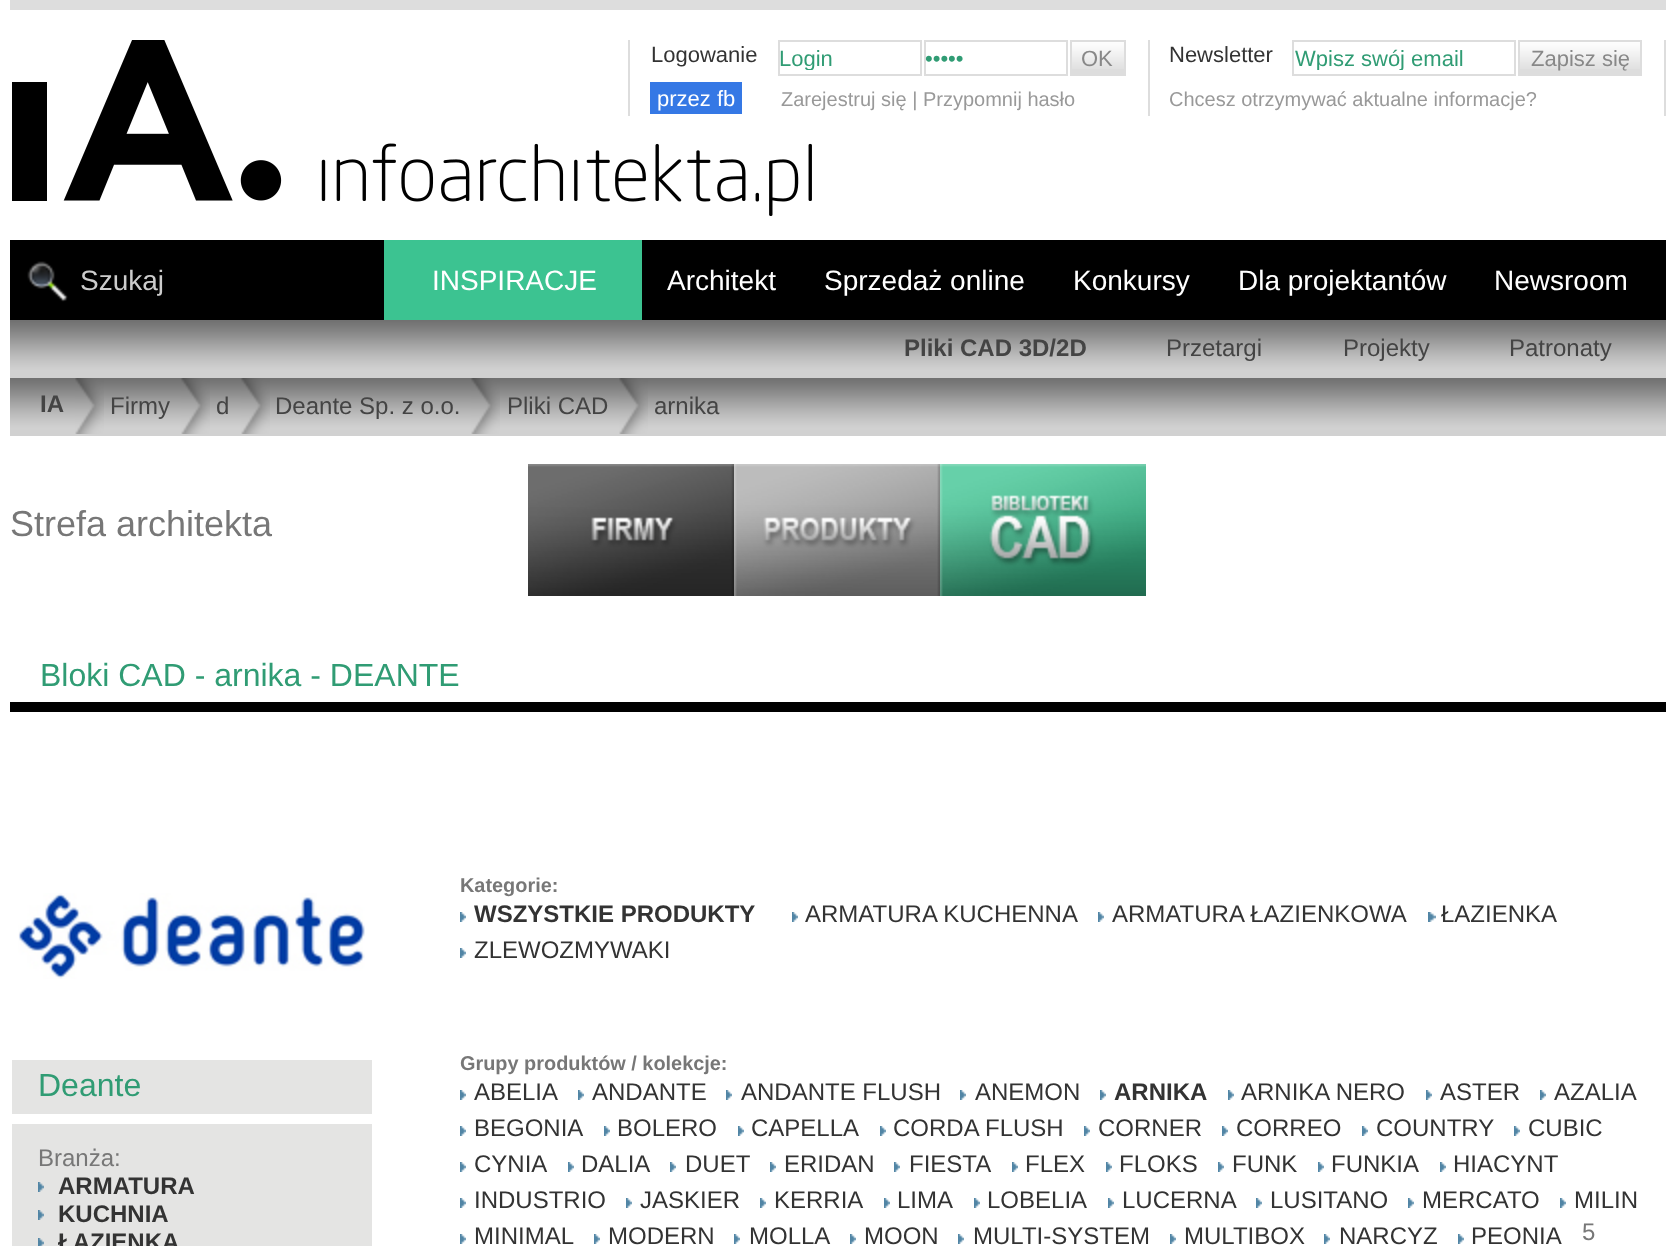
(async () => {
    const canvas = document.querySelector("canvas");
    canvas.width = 1675;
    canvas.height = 1246;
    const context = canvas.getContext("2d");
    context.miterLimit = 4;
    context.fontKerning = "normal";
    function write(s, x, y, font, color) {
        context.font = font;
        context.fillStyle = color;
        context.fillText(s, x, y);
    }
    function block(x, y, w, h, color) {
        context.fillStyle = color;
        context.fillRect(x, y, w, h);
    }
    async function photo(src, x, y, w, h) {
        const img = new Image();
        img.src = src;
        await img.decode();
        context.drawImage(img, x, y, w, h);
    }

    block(0, 0, 1675, 1246, "rgb(255, 255, 255)");
    block(10, 0, 1656, 10, "rgb(221, 221, 221)");
    await photo("media/1.png", 12, 40, 800, 176);
    block(628, 40, 2, 76, "rgb(221, 221, 221)");
    block(1148, 40, 2, 76, "rgb(221, 221, 221)");
    write("Logowanie", 651, 62, "22px Liberation Sans", "rgb(51, 51, 51)");
    context.strokeStyle = "rgb(221, 221, 221)";
    context.lineWidth = 2;
    context.strokeRect(779, 41, 142, 34);
    context.save();
    context.beginPath();
    context.rect(780, 46, 140, 24);
    context.clip();
    write("Login", 779, 66, "22px Liberation Sans", "rgb(48, 156, 116)");
    context.restore();
    context.strokeRect(925, 41, 142, 34);
    write("•••••", 925, 66, "22px Liberation Sans", "rgb(48, 156, 116)");
    block(1072, 42, 52, 32, "rgb(221, 221, 221)");
    await photo("media/2.png", 1072, 42, 52, 27);
    context.strokeRect(1071, 41, 54, 34);
    write("OK", 1081, 66, "22px Liberation Sans", "rgb(136, 136, 136)");
    block(650, 82, 92, 32, "rgb(53, 120, 229)");
    write("przez fb", 657, 106, "22px Liberation Sans", "rgb(255, 255, 255)");
    write("Zarejestruj się | Przypomnij hasło", 781, 106, "20px Liberation Sans", "rgb(153, 153, 153)");
    block(1664, 40, 2, 76, "rgb(221, 221, 221)");
    write("Newsletter", 1169, 62, "22px Liberation Sans", "rgb(51, 51, 51)");
    context.strokeRect(1293, 41, 222, 34);
    context.save();
    context.beginPath();
    context.rect(1294, 46, 220, 24);
    context.clip();
    write("Wpisz swój email", 1295, 66, "22px Liberation Sans", "rgb(48, 156, 116)");
    context.restore();
    block(1520, 42, 120, 32, "rgb(221, 221, 221)");
    await photo("media/3.png", 1520, 42, 120, 27);
    context.strokeRect(1519, 41, 122, 34);
    write("Zapisz się", 1531, 66, "22px Liberation Sans", "rgb(136, 136, 136)");
    write("Chcesz otrzymywać aktualne informacje?", 1169, 106, "20px Liberation Sans", "rgb(153, 153, 153)");
    block(10, 240, 1656, 80, "rgb(0, 0, 0)");
    await photo("media/4.png", 27, 261, 41, 41);
    write("Szukaj", 80, 290, "28px Liberation Sans", "rgb(204, 204, 204)");
    block(384, 240, 258, 80, "rgb(60, 195, 145)");
    write("INSPIRACJE", 432, 290, "28px Liberation Sans", "rgb(255, 255, 255)");
    write("Architekt", 667, 290, "28px Liberation Sans", "rgb(255, 255, 255)");
    write("Sprzedaż online", 824, 290, "28px Liberation Sans", "rgb(255, 255, 255)");
    write("Konkursy", 1073, 290, "28px Liberation Sans", "rgb(255, 255, 255)");
    write("Dla projektantów", 1238, 290, "28px Liberation Sans", "rgb(255, 255, 255)");
    write("Newsroom", 1494, 290, "28px Liberation Sans", "rgb(255, 255, 255)");
    await photo("media/5.png", 10, 320, 1656, 58);
    write("Pliki CAD 3D/2D", 904, 356, "bold 24px Liberation Sans", "rgb(68, 68, 68)");
    write("Przetargi", 1166, 356, "24px Liberation Sans", "rgb(68, 68, 68)");
    write("Projekty", 1343, 356, "24px Liberation Sans", "rgb(68, 68, 68)");
    write("Patronaty", 1509, 356, "24px Liberation Sans", "rgb(68, 68, 68)");
    await photo("media/5.png", 10, 378, 1656, 58);
    write("IA", 40, 412, "bold 24px Liberation Sans", "rgb(68, 68, 68)");
    await photo("media/6.png", 75, 378, 29, 56);
    write("Firmy", 110, 414, "24px Liberation Sans", "rgb(68, 68, 68)");
    await photo("media/6.png", 181, 378, 29, 56);
    write("d", 216, 414, "24px Liberation Sans", "rgb(68, 68, 68)");
    await photo("media/6.png", 241, 378, 29, 56);
    write("Deante Sp. z o.o.", 275, 414, "24px Liberation Sans", "rgb(68, 68, 68)");
    await photo("media/6.png", 471, 378, 29, 56);
    write("Pliki CAD", 507, 414, "24px Liberation Sans", "rgb(68, 68, 68)");
    await photo("media/6.png", 619, 378, 29, 56);
    write("arnika", 654, 414, "24px Liberation Sans", "rgb(68, 68, 68)");
    write("Strefa architekta", 10, 536, "36px Liberation Sans", "rgb(119, 119, 119)");
    block(528, 464, 206, 132, "rgb(68, 68, 68)");
    await photo("media/7.png", 528, 464, 206, 132);
    block(734, 464, 206, 132, "rgb(170, 170, 170)");
    await photo("media/8.png", 734, 464, 206, 132);
    block(940, 464, 206, 132, "rgb(60, 195, 145)");
    await photo("media/9.png", 940, 464, 206, 132);
    block(10, 702, 1656, 10, "rgb(0, 0, 0)");
    write("Bloki CAD - arnika - DEANTE", 40, 686, "32px Liberation Sans", "rgb(48, 156, 116)");
    await photo("media/10.png", 18, 893, 347, 86);
    block(12, 1060, 360, 54, "rgb(228, 228, 227)");
    write("Deante", 38, 1096, "32px Liberation Sans", "rgb(48, 156, 116)");
    block(12, 1124, 360, 122, "rgb(228, 228, 227)");
    write("Branża:", 38, 1166, "24px Liberation Sans", "rgb(119, 119, 119)");
    await photo("media/11.png", 38, 1182, 6, 10);
    write("ARMATURA", 58, 1194, "bold 24px Liberation Sans", "rgb(51, 51, 51)");
    await photo("media/11.png", 38, 1210, 6, 10);
    write("KUCHNIA", 58, 1222, "bold 24px Liberation Sans", "rgb(51, 51, 51)");
    await photo("media/12.png", 38, 1238, 6, 8);
    write("ŁAZIENKA", 58, 1250, "bold 24px Liberation Sans", "rgb(51, 51, 51)");
    write("Kategorie:", 460, 892, "bold 19.9px Liberation Sans", "rgb(119, 119, 119)");
    await photo("media/13.png", 460, 912, 6, 10);
    write("WSZYSTKIE PRODUKTY", 474, 922, "bold 24px Liberation Sans", "rgb(51, 51, 51)");
    await photo("media/13.png", 792, 912, 6, 10);
    write("ARMATURA KUCHENNA", 805, 922, "24px Liberation Sans", "rgb(51, 51, 51)");
    await photo("media/13.png", 1098, 912, 6, 10);
    write("ARMATURA ŁAZIENKOWA", 1112, 922, "24px Liberation Sans", "rgb(51, 51, 51)");
    await photo("media/14.png", 1428, 912, 8, 10);
    write("ŁAZIENKA", 1441, 922, "24px Liberation Sans", "rgb(51, 51, 51)");
    await photo("media/13.png", 460, 948, 6, 10);
    write("ZLEWOZMYWAKI", 474, 958, "24px Liberation Sans", "rgb(51, 51, 51)");
    write("Grupy produktów / kolekcje:", 460, 1070, "bold 19.9px Liberation Sans", "rgb(119, 119, 119)");
    await photo("media/13.png", 460, 1090, 6, 10);
    write("ABELIA", 474, 1100, "24px Liberation Sans", "rgb(51, 51, 51)");
    await photo("media/13.png", 578, 1090, 6, 10);
    write("ANDANTE", 592, 1100, "24px Liberation Sans", "rgb(51, 51, 51)");
    await photo("media/13.png", 726, 1090, 6, 10);
    write("ANDANTE FLUSH", 741, 1100, "24px Liberation Sans", "rgb(51, 51, 51)");
    await photo("media/13.png", 960, 1090, 6, 10);
    write("ANEMON", 975, 1100, "24px Liberation Sans", "rgb(51, 51, 51)");
    await photo("media/13.png", 1100, 1090, 6, 10);
    write("ARNIKA", 1114, 1100, "bold 24px Liberation Sans", "rgb(51, 51, 51)");
    await photo("media/13.png", 1228, 1090, 6, 10);
    write("ARNIKA NERO", 1241, 1100, "24px Liberation Sans", "rgb(51, 51, 51)");
    await photo("media/13.png", 1426, 1090, 6, 10);
    write("ASTER", 1440, 1100, "24px Liberation Sans", "rgb(51, 51, 51)");
    await photo("media/13.png", 1540, 1090, 6, 10);
    write("AZALIA", 1554, 1100, "24px Liberation Sans", "rgb(51, 51, 51)");
    await photo("media/13.png", 460, 1126, 6, 10);
    write("BEGONIA", 474, 1136, "24px Liberation Sans", "rgb(51, 51, 51)");
    await photo("media/13.png", 604, 1126, 6, 10);
    write("BOLERO", 617, 1136, "24px Liberation Sans", "rgb(51, 51, 51)");
    await photo("media/13.png", 738, 1126, 6, 10);
    write("CAPELLA", 751, 1136, "24px Liberation Sans", "rgb(51, 51, 51)");
    await photo("media/13.png", 880, 1126, 6, 10);
    write("CORDA FLUSH", 893, 1136, "24px Liberation Sans", "rgb(51, 51, 51)");
    await photo("media/13.png", 1084, 1126, 6, 10);
    write("CORNER", 1098, 1136, "24px Liberation Sans", "rgb(51, 51, 51)");
    await photo("media/13.png", 1222, 1126, 6, 10);
    write("CORREO", 1236, 1136, "24px Liberation Sans", "rgb(51, 51, 51)");
    await photo("media/13.png", 1362, 1126, 6, 10);
    write("COUNTRY", 1376, 1136, "24px Liberation Sans", "rgb(51, 51, 51)");
    await photo("media/13.png", 1514, 1126, 6, 10);
    write("CUBIC", 1528, 1136, "24px Liberation Sans", "rgb(51, 51, 51)");
    await photo("media/13.png", 460, 1162, 6, 10);
    write("CYNIA", 474, 1172, "24px Liberation Sans", "rgb(51, 51, 51)");
    await photo("media/13.png", 568, 1162, 6, 10);
    write("DALIA", 581, 1172, "24px Liberation Sans", "rgb(51, 51, 51)");
    await photo("media/13.png", 670, 1162, 6, 10);
    write("DUET", 685, 1172, "24px Liberation Sans", "rgb(51, 51, 51)");
    await photo("media/13.png", 770, 1162, 6, 10);
    write("ERIDAN", 784, 1172, "24px Liberation Sans", "rgb(51, 51, 51)");
    await photo("media/13.png", 894, 1162, 6, 10);
    write("FIESTA", 909, 1172, "24px Liberation Sans", "rgb(51, 51, 51)");
    await photo("media/13.png", 1012, 1162, 6, 10);
    write("FLEX", 1025, 1172, "24px Liberation Sans", "rgb(51, 51, 51)");
    await photo("media/13.png", 1106, 1162, 6, 10);
    write("FLOKS", 1119, 1172, "24px Liberation Sans", "rgb(51, 51, 51)");
    await photo("media/13.png", 1218, 1162, 6, 10);
    write("FUNK", 1232, 1172, "24px Liberation Sans", "rgb(51, 51, 51)");
    await photo("media/13.png", 1318, 1162, 6, 10);
    write("FUNKIA", 1331, 1172, "24px Liberation Sans", "rgb(51, 51, 51)");
    await photo("media/13.png", 1440, 1162, 6, 10);
    write("HIACYNT", 1453, 1172, "24px Liberation Sans", "rgb(51, 51, 51)");
    await photo("media/13.png", 460, 1198, 6, 10);
    write("INDUSTRIO", 474, 1208, "24px Liberation Sans", "rgb(51, 51, 51)");
    await photo("media/13.png", 626, 1198, 6, 10);
    write("JASKIER", 640, 1208, "24px Liberation Sans", "rgb(51, 51, 51)");
    await photo("media/13.png", 760, 1198, 6, 10);
    write("KERRIA", 774, 1208, "24px Liberation Sans", "rgb(51, 51, 51)");
    await photo("media/13.png", 884, 1198, 6, 10);
    write("LIMA", 897, 1208, "24px Liberation Sans", "rgb(51, 51, 51)");
    await photo("media/13.png", 974, 1198, 6, 10);
    write("LOBELIA", 987, 1208, "24px Liberation Sans", "rgb(51, 51, 51)");
    await photo("media/13.png", 1108, 1198, 6, 10);
    write("LUCERNA", 1122, 1208, "24px Liberation Sans", "rgb(51, 51, 51)");
    await photo("media/13.png", 1256, 1198, 6, 10);
    write("LUSITANO", 1270, 1208, "24px Liberation Sans", "rgb(51, 51, 51)");
    await photo("media/13.png", 1408, 1198, 6, 10);
    write("MERCATO", 1422, 1208, "24px Liberation Sans", "rgb(51, 51, 51)");
    await photo("media/13.png", 1560, 1198, 6, 10);
    write("MILIN", 1574, 1208, "24px Liberation Sans", "rgb(51, 51, 51)");
    await photo("media/13.png", 460, 1234, 6, 10);
    write("MINIMAL", 474, 1244, "24px Liberation Sans", "rgb(51, 51, 51)");
    await photo("media/13.png", 594, 1234, 6, 10);
    write("MODERN", 608, 1244, "24px Liberation Sans", "rgb(51, 51, 51)");
    await photo("media/13.png", 734, 1234, 6, 10);
    write("MOLLA", 749, 1244, "24px Liberation Sans", "rgb(51, 51, 51)");
    await photo("media/13.png", 850, 1234, 6, 10);
    write("MOON", 864, 1244, "24px Liberation Sans", "rgb(51, 51, 51)");
    await photo("media/13.png", 958, 1234, 6, 10);
    write("MULTI-SYSTEM", 973, 1244, "24px Liberation Sans", "rgb(51, 51, 51)");
    await photo("media/13.png", 1170, 1234, 6, 10);
    write("MULTIBOX", 1184, 1244, "24px Liberation Sans", "rgb(51, 51, 51)");
    await photo("media/13.png", 1324, 1234, 6, 10);
    write("NARCYZ", 1339, 1244, "24px Liberation Sans", "rgb(51, 51, 51)");
    await photo("media/13.png", 1458, 1234, 6, 10);
    write("PEONIA", 1471, 1244, "24px Liberation Sans", "rgb(51, 51, 51)");
    write("5", 1582, 1240, "24px Liberation Sans", "rgb(119, 119, 119)");
})();
